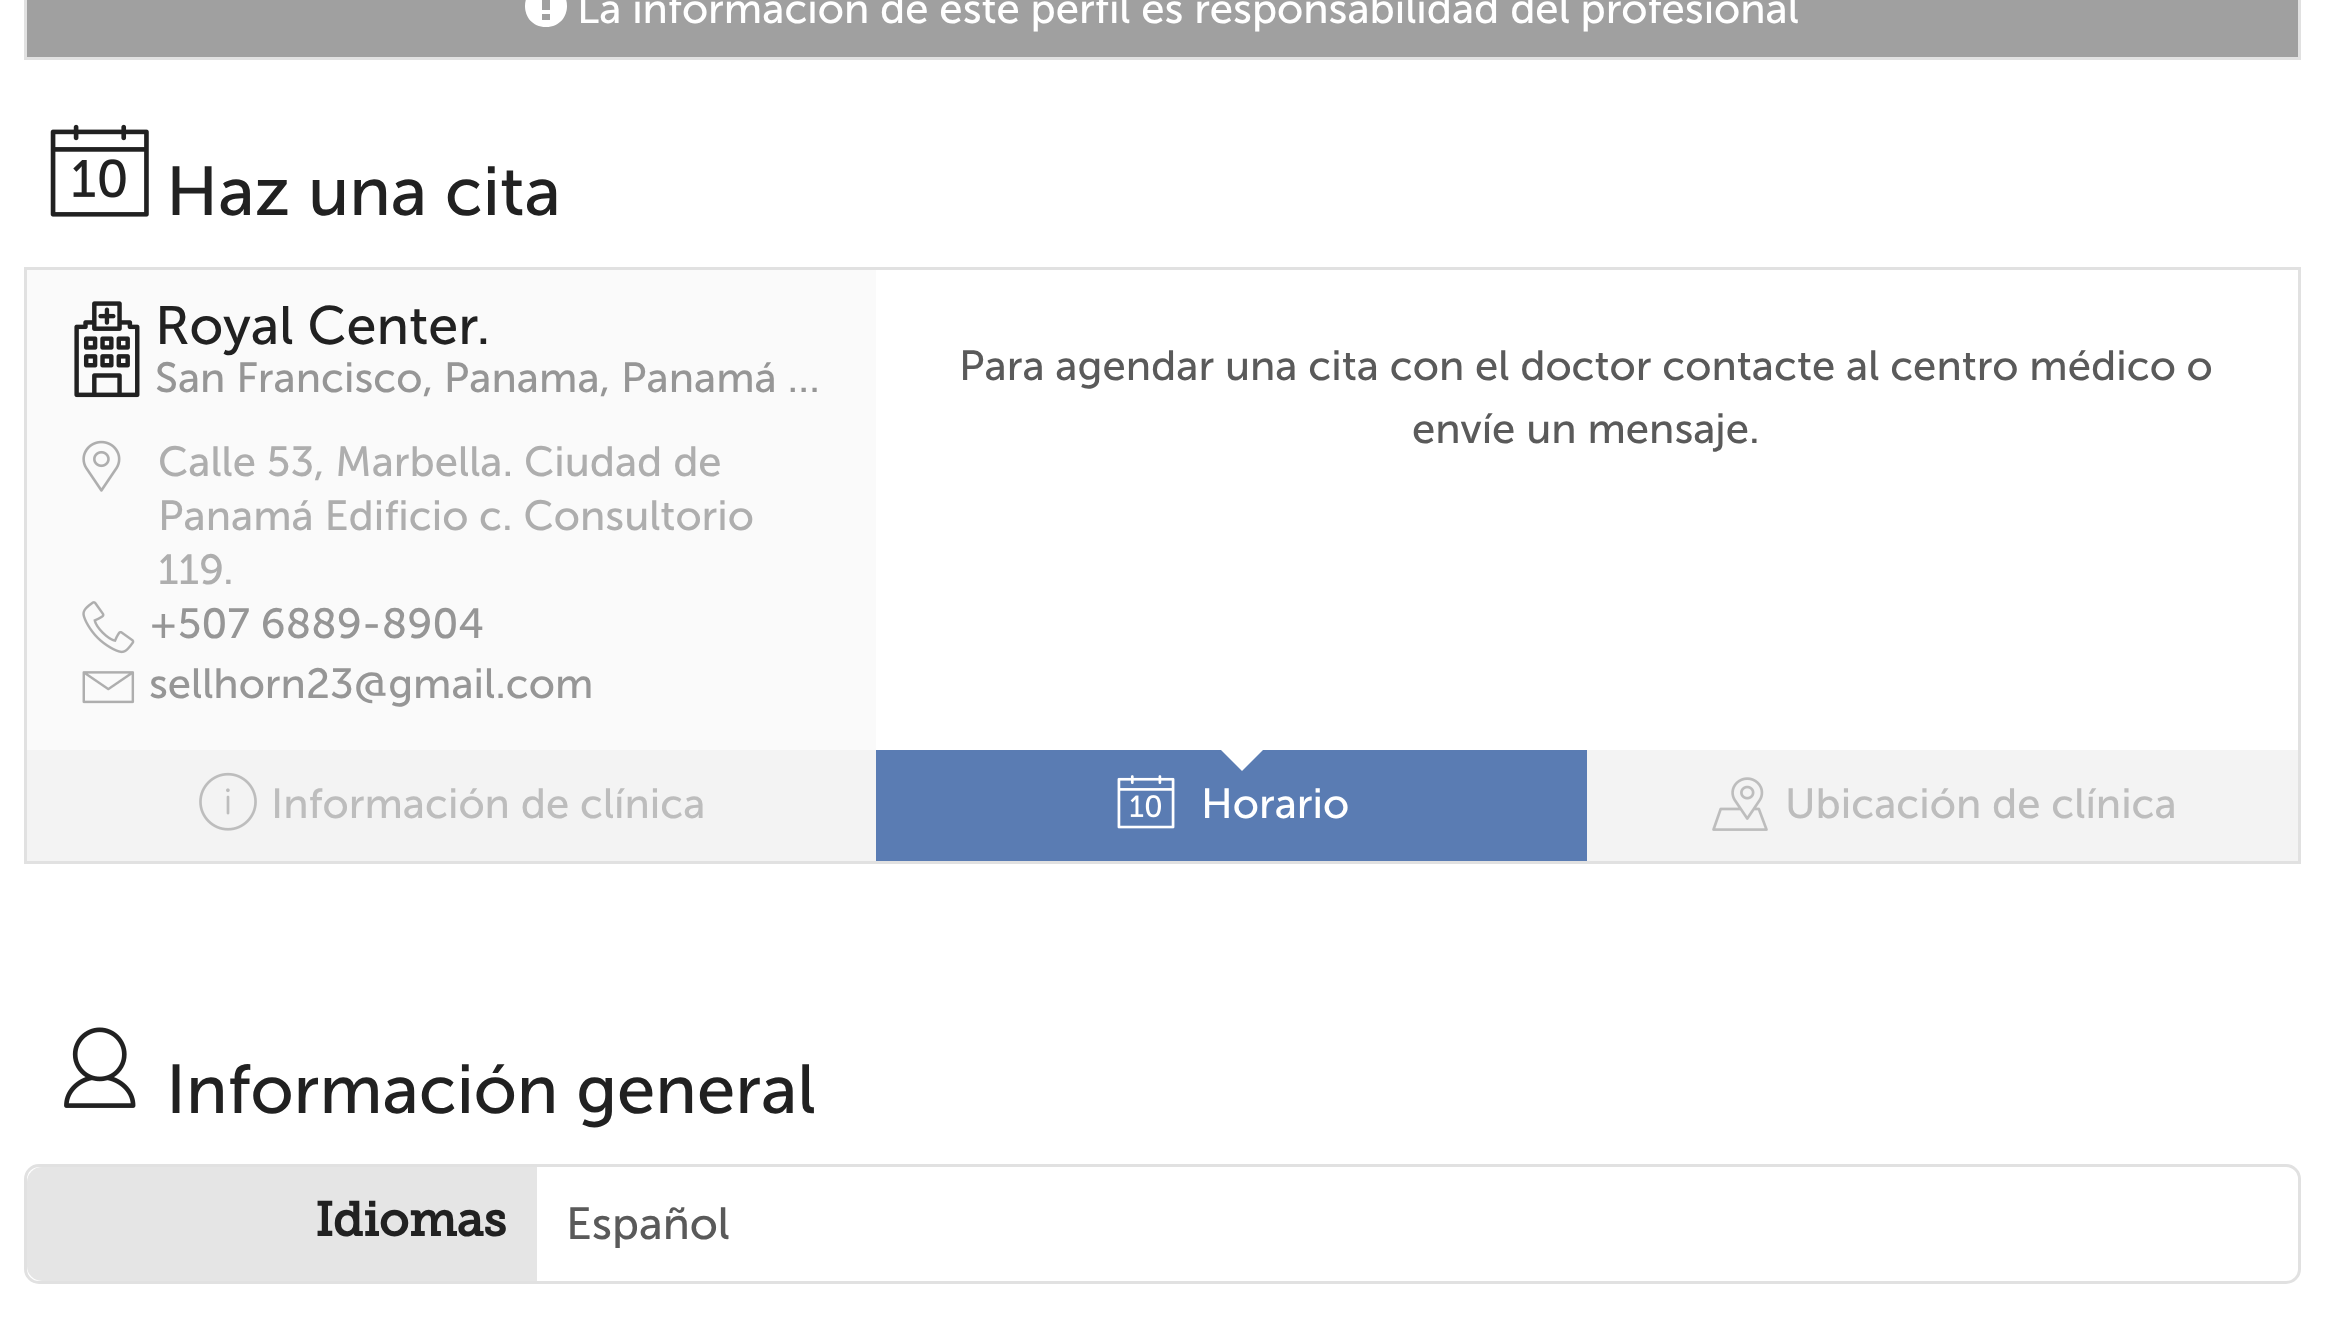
(async () => {
    const canvas = document.querySelector("canvas");
    canvas.width = 2325;
    canvas.height = 1329;
    const context = canvas.getContext("2d");
    context.miterLimit = 4;
    context.fontKerning = "normal";
    function write(s, x, y, font, color) {
        context.font = font;
        context.fillStyle = color;
        context.fillText(s, x, y);
    }
    function block(x, y, w, h, color) {
        context.fillStyle = color;
        context.fillRect(x, y, w, h);
    }
    async function photo(src, x, y, w, h) {
        const img = new Image();
        img.src = src;
        await img.decode();
        context.drawImage(img, x, y, w, h);
    }

    block(0, 0, 2325, 1329, "rgb(255, 255, 255)");
    context.fillStyle = "rgb(160, 160, 160)";
    context.beginPath();
    context.rect(25.5, -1.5, 2274, 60);
    context.fill();
    context.strokeStyle = "rgb(225, 225, 225)";
    context.lineWidth = 3;
    context.stroke();
    context.fillStyle = "rgb(255, 255, 255)";
    context.beginPath();
    context.moveTo(546, -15);
    context.bezierCurveTo(518, -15, 518, 27, 546, 27);
    context.bezierCurveTo(574, 27, 574, -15, 546, -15);
    context.closePath();
    context.moveTo(550, 20);
    context.lineTo(542, 20);
    context.lineTo(542, 14);
    context.lineTo(550, 14);
    context.closePath();
    context.moveTo(550, 10);
    context.lineTo(542, 10);
    context.lineTo(542, -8);
    context.lineTo(550, -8);
    context.closePath();
    context.fill();
    write("La información de este perfil es responsabilidad del profesional", 577, 23, "42px Museo Sans", "rgb(255, 255, 255)");
    await photo("media/1.png", 50, 124, 99, 93);
    write("Haz una cita", 166, 215, "69px Museo Sans", "rgb(33, 33, 33)");
    block(27, 270, 849, 480, "rgb(250, 250, 250)");
    context.strokeRect(25.5, 268.5, 2274, 594);
    await photo("media/2.png", 74, 301, 66, 97);
    write("Royal Center.", 155, 344, "54px Museo Sans", "rgb(33, 33, 33)");
    write("San Francisco, Panama, Panamá …", 155, 392, "42px Museo Sans", "rgb(150, 150, 150)");
    await photo("media/3.png", 82, 440, 39, 52);
    write("Calle 53, Marbella. Ciudad de", 158, 476, "42px Museo Sans", "rgb(174, 174, 174)");
    write("Panamá Edificio c. Consultorio", 158, 530, "42px Museo Sans", "rgb(174, 174, 174)");
    write("119.", 158, 584, "42px Museo Sans", "rgb(174, 174, 174)");
    await photo("media/4.png", 82, 601, 53, 53);
    write("+507 6889-8904", 149, 638, "42px Museo Sans", "rgb(150, 150, 150)");
    await photo("media/5.png", 82, 671, 53, 33);
    write("sellhorn23@gmail.com", 149, 698, "42px Museo Sans", "rgb(150, 150, 150)");
    write("Para agendar una cita con el doctor contacte al centro médico o", 959, 380, "42px Museo Sans", "rgb(90, 90, 90)");
    write("envíe un mensaje.", 1412, 443, "42px Museo Sans", "rgb(90, 90, 90)");
    block(27, 750, 849, 111, "rgb(243, 243, 243)");
    await photo("media/6.png", 199, 772, 58, 59);
    write("Información de clínica", 271, 818, "42px Museo Sans", "rgb(189, 189, 189)");
    block(876, 750, 711, 111, "rgb(90, 124, 179)");
    context.fillStyle = "rgb(255, 255, 255)";
    context.beginPath();
    context.moveTo(1221, 750);
    context.lineTo(1263, 750);
    context.lineTo(1242, 771);
    context.closePath();
    context.fill();
    await photo("media/7.png", 1117, 775, 58, 54);
    write("Horario", 1201, 818, "42px Museo Sans", "rgb(255, 255, 255)");
    block(1587, 750, 711, 111, "rgb(243, 243, 243)");
    await photo("media/8.png", 1712, 777, 56, 54);
    write("Ubicación de clínica", 1785, 818, "42px Museo Sans", "rgb(189, 189, 189)");
    await photo("media/9.png", 64, 1027, 72, 81);
    write("Información general", 166, 1113, "69px Museo Sans", "rgb(33, 33, 33)");
    context.beginPath();
    context.roundRect(25.5, 1165.5, 2274, 117, 13.5);
    context.stroke();
    context.fillStyle = "rgb(229, 229, 229)";
    context.beginPath();
    context.roundRect(27, 1167, 510, 114, [15, 0, 0, 15]);
    context.fill();
    write("Idiomas", 315, 1236, "bold 48px Museo Slab", "rgb(33, 33, 33)");
    write("Español", 566, 1239, "45px Museo Sans", "rgb(90, 90, 90)");
})();
